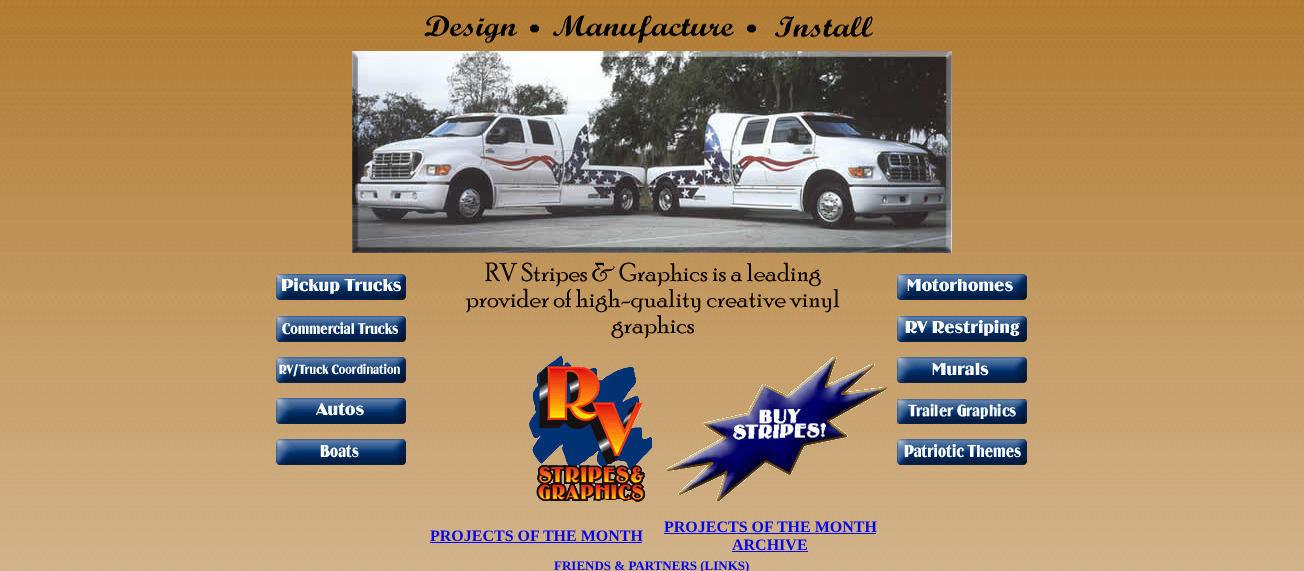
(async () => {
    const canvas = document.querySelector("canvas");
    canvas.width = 1304;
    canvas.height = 571;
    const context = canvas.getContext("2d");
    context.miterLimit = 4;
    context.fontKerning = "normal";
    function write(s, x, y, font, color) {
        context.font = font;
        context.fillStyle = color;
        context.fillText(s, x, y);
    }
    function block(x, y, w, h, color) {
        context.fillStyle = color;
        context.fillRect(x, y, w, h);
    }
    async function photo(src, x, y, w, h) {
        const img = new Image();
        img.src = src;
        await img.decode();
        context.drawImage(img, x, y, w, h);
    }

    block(0, 0, 1304, 571, "rgb(255, 255, 255)");
    await photo("media/1.png", 0, 0, 1304, 571);
    await photo("media/2.png", 424, 15, 449, 29);
    await photo("media/3.png", 352, 51, 600, 202);
    await photo("media/4.png", 276, 274, 130, 26);
    await photo("media/5.png", 276, 316, 130, 26);
    await photo("media/6.png", 276, 357, 130, 26);
    await photo("media/7.png", 276, 398, 130, 26);
    await photo("media/8.png", 276, 439, 130, 26);
    await photo("media/9.png", 465, 262, 375, 77);
    await photo("media/10.png", 897, 274, 130, 26);
    await photo("media/11.png", 897, 316, 130, 26);
    await photo("media/12.png", 897, 357, 130, 26);
    await photo("media/13.png", 897, 399, 130, 25);
    await photo("media/14.png", 897, 439, 130, 26);
    await photo("media/15.png", 529, 356, 123, 146);
    await photo("media/16.png", 667, 357, 220, 144);
    write("PROJECTS OF THE MONTH", 430, 541, "bold 16px Liberation Serif", "rgb(0, 0, 238)");
    block(430, 542, 212, 1, "rgb(0, 0, 238)");
    write("PROJECTS OF THE MONTH", 664, 532, "bold 16px Liberation Serif", "rgb(0, 0, 238)");
    block(664, 533, 212, 1, "rgb(0, 0, 238)");
    write("ARCHIVE", 732, 550, "bold 16px Liberation Serif", "rgb(0, 0, 238)");
    block(732, 551, 76, 1, "rgb(0, 0, 238)");
    write("FRIENDS & PARTNERS (LINKS)", 554, 570, "bold 13px Liberation Serif", "rgb(0, 0, 238)");
})();
